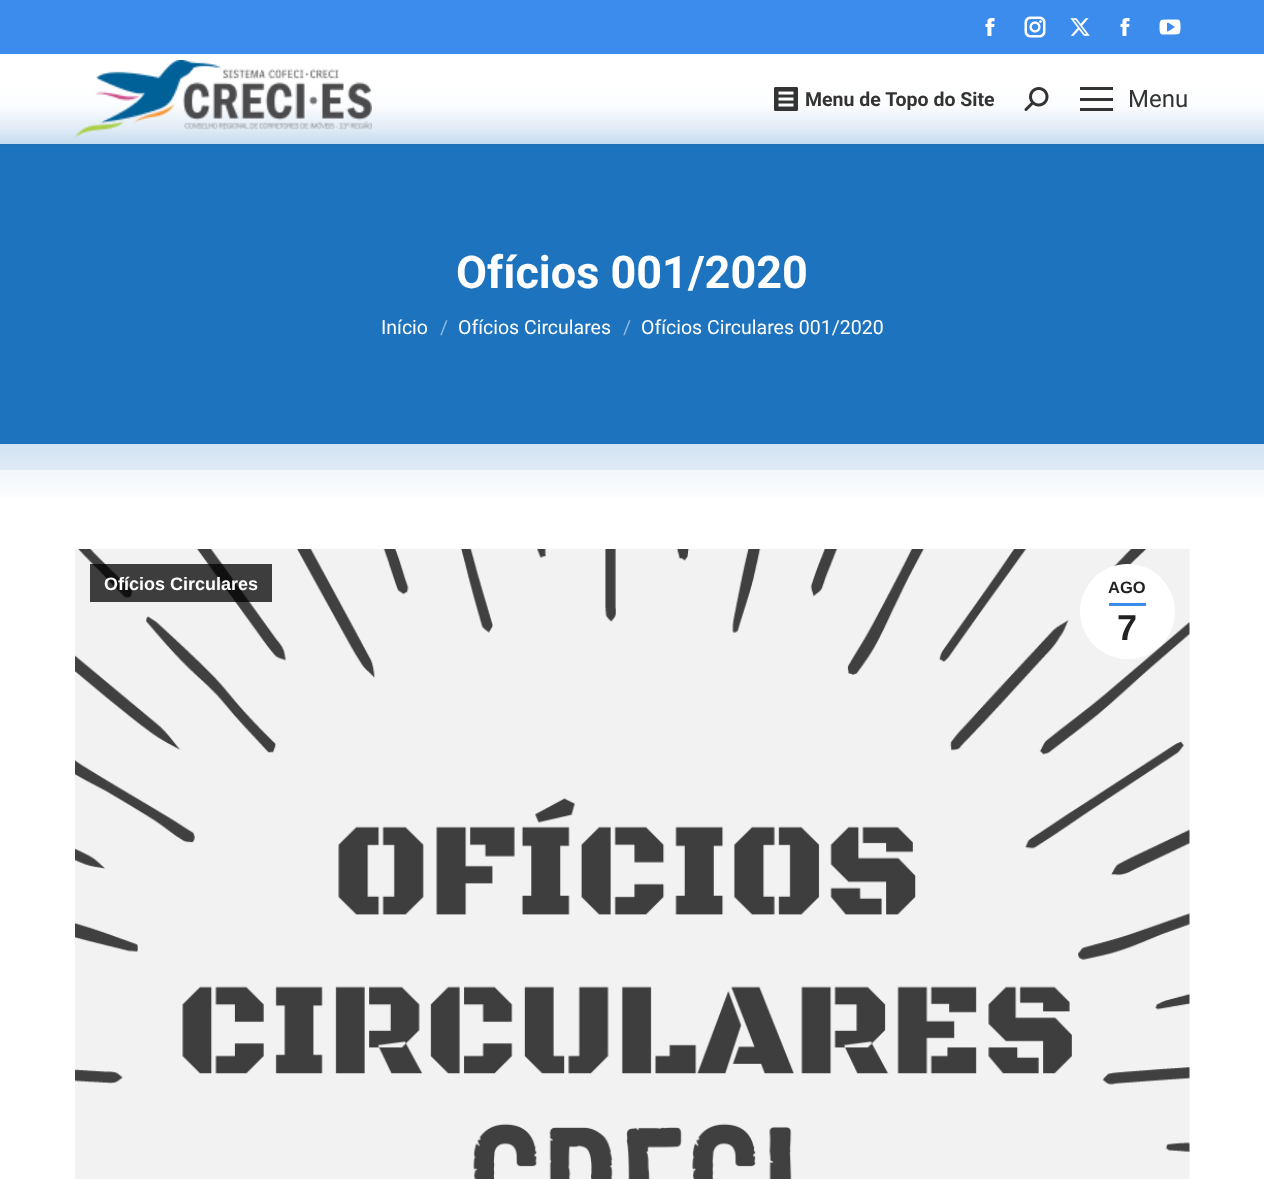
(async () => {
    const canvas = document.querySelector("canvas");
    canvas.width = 1264;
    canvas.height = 1179;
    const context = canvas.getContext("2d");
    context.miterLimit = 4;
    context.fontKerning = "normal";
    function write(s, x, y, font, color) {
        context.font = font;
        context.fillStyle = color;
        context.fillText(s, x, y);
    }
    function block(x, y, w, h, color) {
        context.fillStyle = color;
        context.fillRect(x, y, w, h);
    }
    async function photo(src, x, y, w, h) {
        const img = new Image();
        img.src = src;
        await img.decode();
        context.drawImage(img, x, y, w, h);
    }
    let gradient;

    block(0, 0, 1264, 1179, "rgb(30, 115, 190)");
    context.fillStyle = "rgb(29, 111, 183)";
    context.beginPath();
    context.moveTo(0, 144);
    context.lineTo(0, 146);
    context.lineTo(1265, 146);
    context.lineTo(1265, 2);
    context.lineTo(1264, 2);
    context.lineTo(1264, 144);
    context.closePath();
    context.fill();
    gradient = context.createLinearGradient(632, 144, 632, 0);
    gradient.addColorStop(0, "rgba(255, 255, 255, 0.75)");
    gradient.addColorStop(0.05, "rgba(255, 255, 255, 0.8)");
    gradient.addColorStop(0.1, "rgba(255, 255, 255, 0.86)");
    gradient.addColorStop(0.16, "rgba(255, 255, 255, 0.9)");
    gradient.addColorStop(0.21, "rgba(255, 255, 255, 0.94)");
    gradient.addColorStop(0.26, "rgba(255, 255, 255, 0.98)");
    gradient.addColorStop(0.31, "rgba(255, 255, 255, 0.99)");
    gradient.addColorStop(0.42, "rgb(255, 255, 255)");
    context.fillStyle = gradient;
    context.fillRect(0, 54, 1264, 90);
    block(0, 0, 1264, 54, "rgb(59, 140, 237)");
    await photo("media/1.png", 985, 18, 10, 18);
    await photo("media/2.png", 1024, 16, 22, 22);
    await photo("media/3.png", 1070, 18, 20, 18);
    await photo("media/1.png", 1120, 18, 10, 18);
    await photo("media/4.png", 1159, 19, 22, 16);
    await photo("media/5.png", 75, 60, 297, 78);
    await photo("media/6.png", 774, 87, 24, 24);
    write("Menu de Topo do Site", 805, 106, "bold 19.5px Roboto", "rgb(51, 51, 51)");
    await photo("media/7.png", 1024, 87, 25, 24);
    block(1080, 87, 33, 3, "rgb(51, 51, 51)");
    block(1080, 98, 33, 3, "rgb(51, 51, 51)");
    block(1080, 108, 33, 3, "rgb(51, 51, 51)");
    write("Menu", 1128, 107, "24px Roboto", "rgb(51, 51, 51)");
    write("Ofícios 001/2020", 456, 288, "bold 45px Roboto", "rgb(255, 255, 255)");
    write("Início", 381, 334, "19.5px Roboto", "rgb(255, 255, 255)");
    write("/", 440, 334, "19.5px Roboto", "rgb(143, 185, 223)");
    write("Ofícios Circulares", 458, 334, "19.5px Roboto", "rgb(255, 255, 255)");
    write("/", 623, 334, "19.5px Roboto", "rgb(143, 185, 223)");
    write("Ofícios Circulares 001/2020", 641, 334, "19.5px Roboto", "rgb(255, 255, 255)");
    context.fillStyle = "rgb(29, 111, 183)";
    context.beginPath();
    context.moveTo(0, 443);
    context.lineTo(0, 444);
    context.lineTo(1264, 444);
    context.lineTo(1264, 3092);
    context.lineTo(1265, 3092);
    context.lineTo(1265, 443);
    context.closePath();
    context.fill();
    gradient = context.createLinearGradient(632, 444, 632, 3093);
    gradient.addColorStop(0, "rgba(255, 255, 255, 0.75)");
    gradient.addColorStop(0, "rgba(255, 255, 255, 0.8)");
    gradient.addColorStop(0.01, "rgba(255, 255, 255, 0.86)");
    gradient.addColorStop(0.01, "rgba(255, 255, 255, 0.9)");
    gradient.addColorStop(0.01, "rgba(255, 255, 255, 0.94)");
    gradient.addColorStop(0.02, "rgba(255, 255, 255, 0.98)");
    gradient.addColorStop(0.02, "rgba(255, 255, 255, 0.99)");
    gradient.addColorStop(0.02, "rgb(255, 255, 255)");
    context.fillStyle = gradient;
    context.fillRect(0, 444, 1264, 735);
    await photo("media/8.png", 75, 549, 1115, 630);
    block(90, 564, 182, 38, "rgba(0, 0, 0, 0.75)");
    write("Ofícios Circulares", 104, 590, "bold 18px Liberation Sans", "rgb(255, 255, 255)");
    context.beginPath();
    context.arc(1127.5, 611.5, 47.5, 0, Math.PI * 2);
    context.fill();
    write("AGO", 1108, 593, "bold 16.5px Liberation Sans", "rgb(34, 34, 34)");
    block(1109, 603, 37, 3, "rgb(59, 140, 237)");
    write("7", 1117, 640, "bold 36px Liberation Sans", "rgb(34, 34, 34)");
})();
